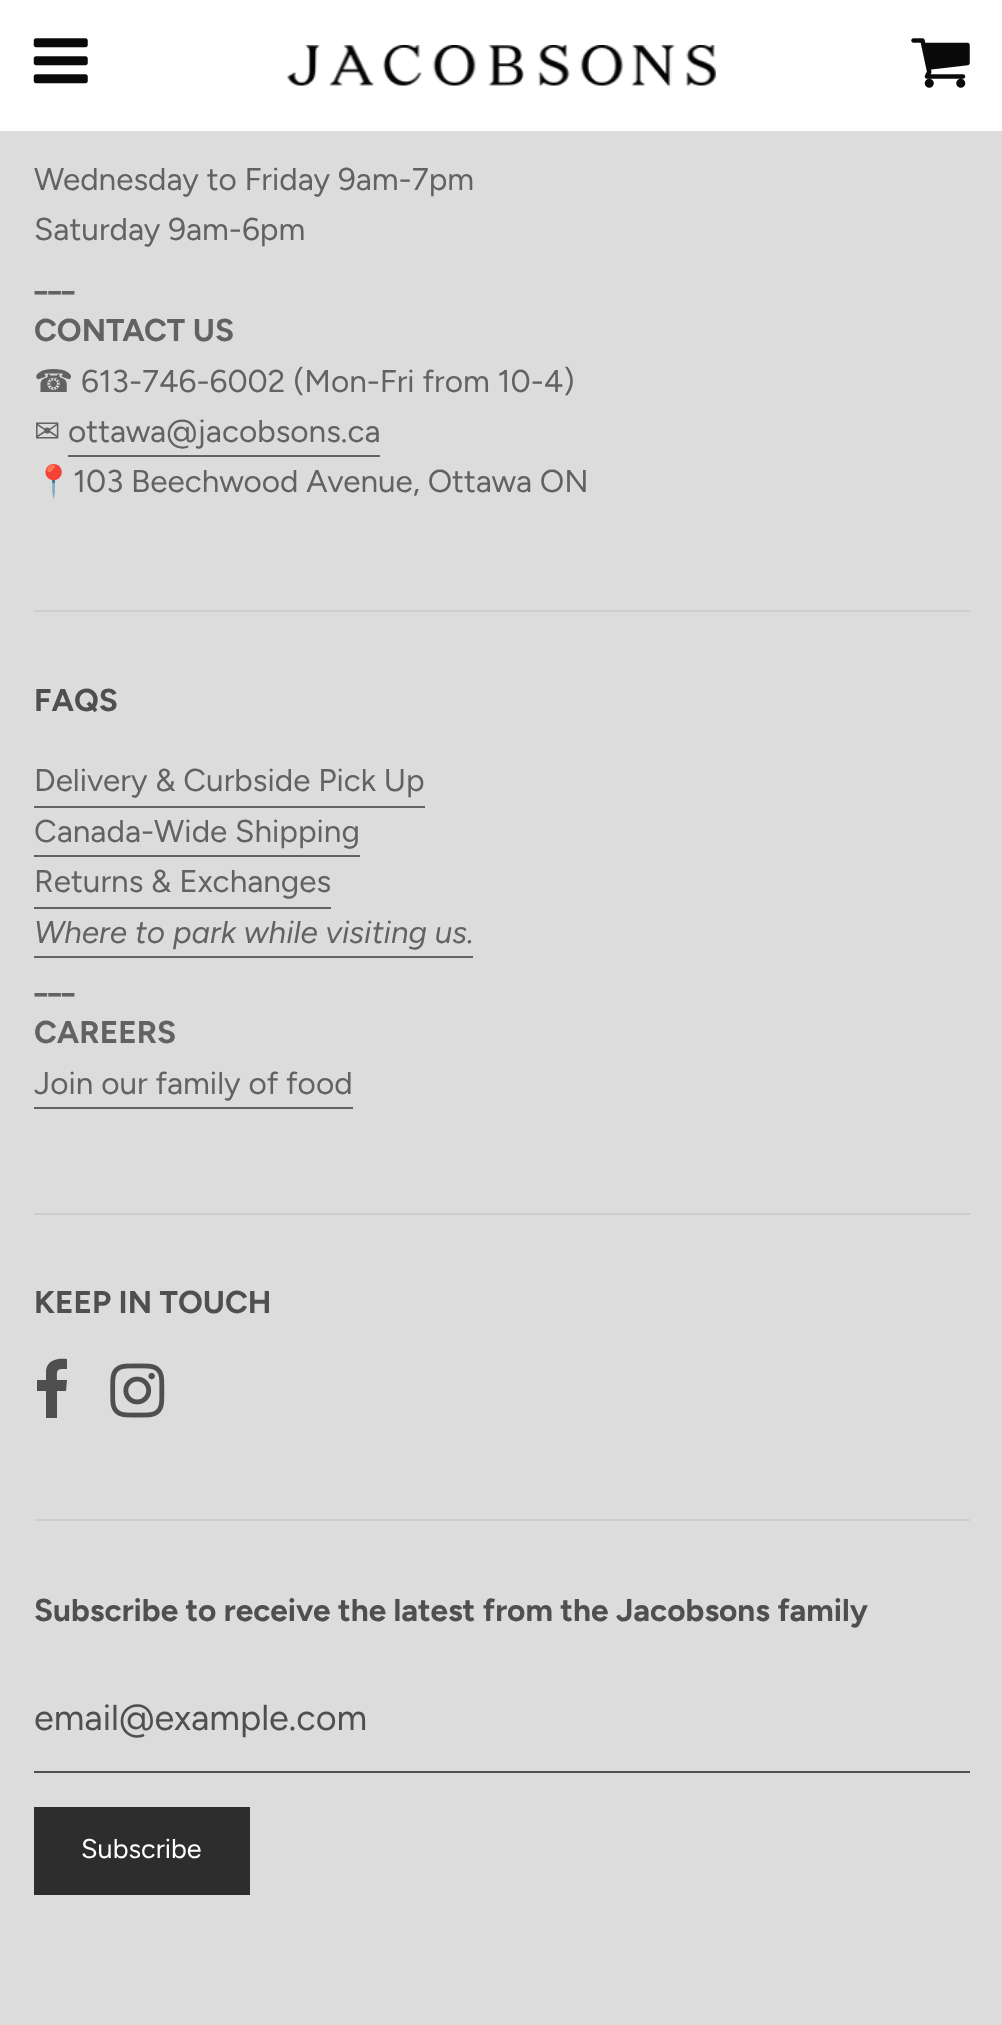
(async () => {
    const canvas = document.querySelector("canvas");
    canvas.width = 1002;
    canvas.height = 2025;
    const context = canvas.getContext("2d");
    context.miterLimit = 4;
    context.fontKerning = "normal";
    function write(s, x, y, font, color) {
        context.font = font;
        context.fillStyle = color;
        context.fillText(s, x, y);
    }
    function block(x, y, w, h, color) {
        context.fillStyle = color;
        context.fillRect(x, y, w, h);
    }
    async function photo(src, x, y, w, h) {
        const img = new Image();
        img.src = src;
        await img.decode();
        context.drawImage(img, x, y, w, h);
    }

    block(0, 0, 1002, 2025, "rgb(220, 220, 220)");
    block(0, 0, 1002, 131, "rgb(255, 255, 255)");
    await photo("media/1.png", 33, 38, 55, 46);
    await photo("media/2.png", 287, 45, 429, 41);
    await photo("media/3.png", 911, 38, 59, 50);
    write("Wednesday to Friday 9am-7pm", 34, 190, "31.5px Figtree", "rgb(98, 98, 98)");
    write("Saturday 9am-6pm", 34, 240, "31.5px Figtree", "rgb(98, 98, 98)");
    write("___", 34, 291, "bold 31.5px Figtree", "rgb(98, 98, 98)");
    write("CONTACT US", 34, 341, "bold 31.5px Figtree", "rgb(98, 98, 98)");
    write("☎", 34, 392, "31.5px DejaVu Sans", "rgb(98, 98, 98)");
    write("613-746-6002 (Mon-Fri from 10-4)", 81, 392, "31.5px Figtree", "rgb(98, 98, 98)");
    write("✉", 34, 442, "31.5px DejaVu Sans", "rgb(98, 98, 98)");
    write("ottawa@jacobsons.ca", 68, 442, "31.5px Figtree", "rgb(98, 98, 98)");
    block(68, 455, 312, 2, "rgb(98, 98, 98)");
    write("📍", 34, 492, "31.5px Noto Color Emoji", "rgb(98, 98, 98)");
    write("103 Beechwood Avenue, Ottawa ON", 73, 492, "31.5px Figtree", "rgb(98, 98, 98)");
    block(34, 610, 936, 2, "rgb(206, 206, 206)");
    write("FAQS", 34, 711, "bold 31.5px Figtree", "rgb(79, 79, 79)");
    write("Delivery & Curbside Pick Up", 34, 791, "31.5px Figtree", "rgb(98, 98, 98)");
    block(34, 806, 391, 2, "rgb(98, 98, 98)");
    write("Canada-Wide Shipping", 34, 842, "31.5px Figtree", "rgb(98, 98, 98)");
    block(34, 855, 326, 2, "rgb(98, 98, 98)");
    write("Returns & Exchanges", 34, 892, "31.5px Figtree", "rgb(98, 98, 98)");
    block(34, 907, 297, 2, "rgb(98, 98, 98)");
    write("Where to park while visiting us.", 34, 943, "italic 31.5px Figtree", "rgb(98, 98, 98)");
    block(34, 956, 439, 2, "rgb(98, 98, 98)");
    write("___", 34, 993, "bold 31.5px Figtree", "rgb(98, 98, 98)");
    write("CAREERS", 34, 1043, "bold 31.5px Figtree", "rgb(98, 98, 98)");
    write("Join our family of food", 34, 1094, "31.5px Figtree", "rgb(98, 98, 98)");
    block(34, 1107, 319, 2, "rgb(98, 98, 98)");
    block(34, 1213, 936, 2, "rgb(206, 206, 206)");
    write("KEEP IN TOUCH", 34, 1313, "bold 31.5px Figtree", "rgb(79, 79, 79)");
    context.beginPath();
    context.moveTo(67, 1359);
    context.lineTo(67, 1369);
    context.bezierCurveTo(56, 1369, 57, 1369, 57, 1380);
    context.lineTo(67, 1380);
    context.lineTo(66, 1391);
    context.lineTo(57, 1391);
    context.lineTo(57, 1418);
    context.lineTo(46, 1418);
    context.lineTo(46, 1391);
    context.lineTo(37, 1391);
    context.lineTo(37, 1380);
    context.lineTo(46, 1380);
    context.lineTo(46, 1370);
    context.bezierCurveTo(48, 1359, 59, 1358, 67, 1359);
    context.closePath();
    context.fill();
    await photo("media/4.png", 110, 1363, 55, 55);
    block(34, 1519, 936, 2, "rgb(206, 206, 206)");
    write("Subscribe to receive the latest from the Jacobsons family", 34, 1621, "bold 31.5px Figtree", "rgb(79, 79, 79)");
    block(34, 1771, 936, 2, "rgb(79, 79, 79)");
    write("email@example.com", 34, 1730, "36px Figtree", "rgb(79, 79, 79)");
    block(34, 1807, 216, 88, "rgb(45, 45, 45)");
    write("Subscribe", 81, 1858, "27px Figtree", "rgb(255, 255, 255)");
})();
